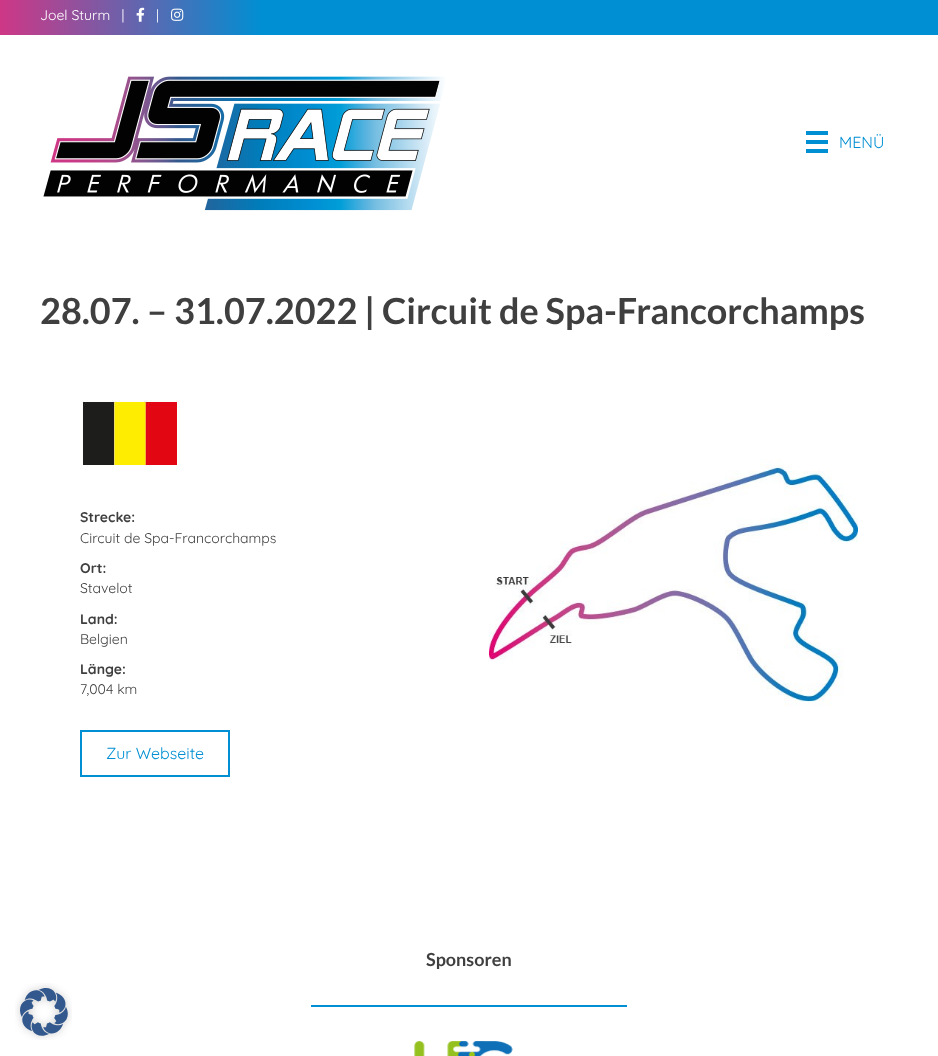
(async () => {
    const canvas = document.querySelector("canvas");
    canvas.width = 938;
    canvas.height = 1056;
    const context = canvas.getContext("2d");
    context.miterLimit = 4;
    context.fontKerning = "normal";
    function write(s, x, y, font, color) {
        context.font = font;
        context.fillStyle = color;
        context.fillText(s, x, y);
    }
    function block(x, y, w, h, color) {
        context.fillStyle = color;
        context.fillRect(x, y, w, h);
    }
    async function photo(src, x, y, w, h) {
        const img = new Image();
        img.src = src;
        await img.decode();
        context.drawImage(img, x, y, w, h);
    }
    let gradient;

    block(0, 0, 938, 1056, "rgb(255, 255, 255)");
    gradient = context.createLinearGradient(0, 18, 938, 17);
    gradient.addColorStop(0, "rgb(206, 55, 134)");
    gradient.addColorStop(0.28, "rgb(0, 143, 211)");
    context.fillStyle = gradient;
    context.fillRect(0, 0, 938, 35);
    write("Joel Sturm   |", 40, 20, "14px Quicksand", "rgb(255, 255, 255)");
    await photo("media/1.png", 136, 7, 9, 15);
    write("|", 156, 20, "14px Quicksand", "rgb(255, 255, 255)");
    await photo("media/2.png", 171, 8, 13, 13);
    await photo("media/3.png", 43, 76, 402, 135);
    block(806, 131, 22, 4, "rgb(0, 143, 211)");
    block(806, 140, 22, 4, "rgb(0, 143, 211)");
    block(806, 149, 22, 4, "rgb(0, 143, 211)");
    write("MENÜ", 839, 148, "16px Quicksand", "rgb(0, 143, 211)");
    write("28.07. – 31.07.2022 | Circuit de Spa-Francorchamps", 40, 324, "bold 36px Lato", "rgb(63, 63, 63)");
    await photo("media/4.png", 80, 400, 100, 67);
    write("Strecke:", 80, 522, "bold 14px Quicksand", "rgb(63, 63, 63)");
    write("Circuit de Spa-Francorchamps", 80, 543, "14px Quicksand", "rgb(63, 63, 63)");
    write("Ort:", 80, 573, "bold 14px Quicksand", "rgb(63, 63, 63)");
    write("Stavelot", 80, 593, "14px Quicksand", "rgb(63, 63, 63)");
    write("Land:", 80, 624, "bold 14px Quicksand", "rgb(63, 63, 63)");
    write("Belgien", 80, 644, "14px Quicksand", "rgb(63, 63, 63)");
    write("Länge:", 80, 674, "bold 14px Quicksand", "rgb(63, 63, 63)");
    write("7,004 km", 80, 694, "14px Quicksand", "rgb(63, 63, 63)");
    context.strokeStyle = "rgb(0, 143, 211)";
    context.lineWidth = 2;
    context.strokeRect(81, 731, 148, 45);
    write("Zur Webseite", 106, 759, "16px Quicksand", "rgb(0, 143, 211)");
    await photo("media/5.png", 489, 459, 369, 248);
    write("Sponsoren", 426, 966, "bold 18px Lato", "rgb(63, 63, 63)");
    block(311, 1005, 316, 2, "rgb(0, 143, 211)");
    await photo("media/6.png", 414, 1041, 99, 15);
    await photo("media/7.png", 15, 983, 57, 57);
})();
